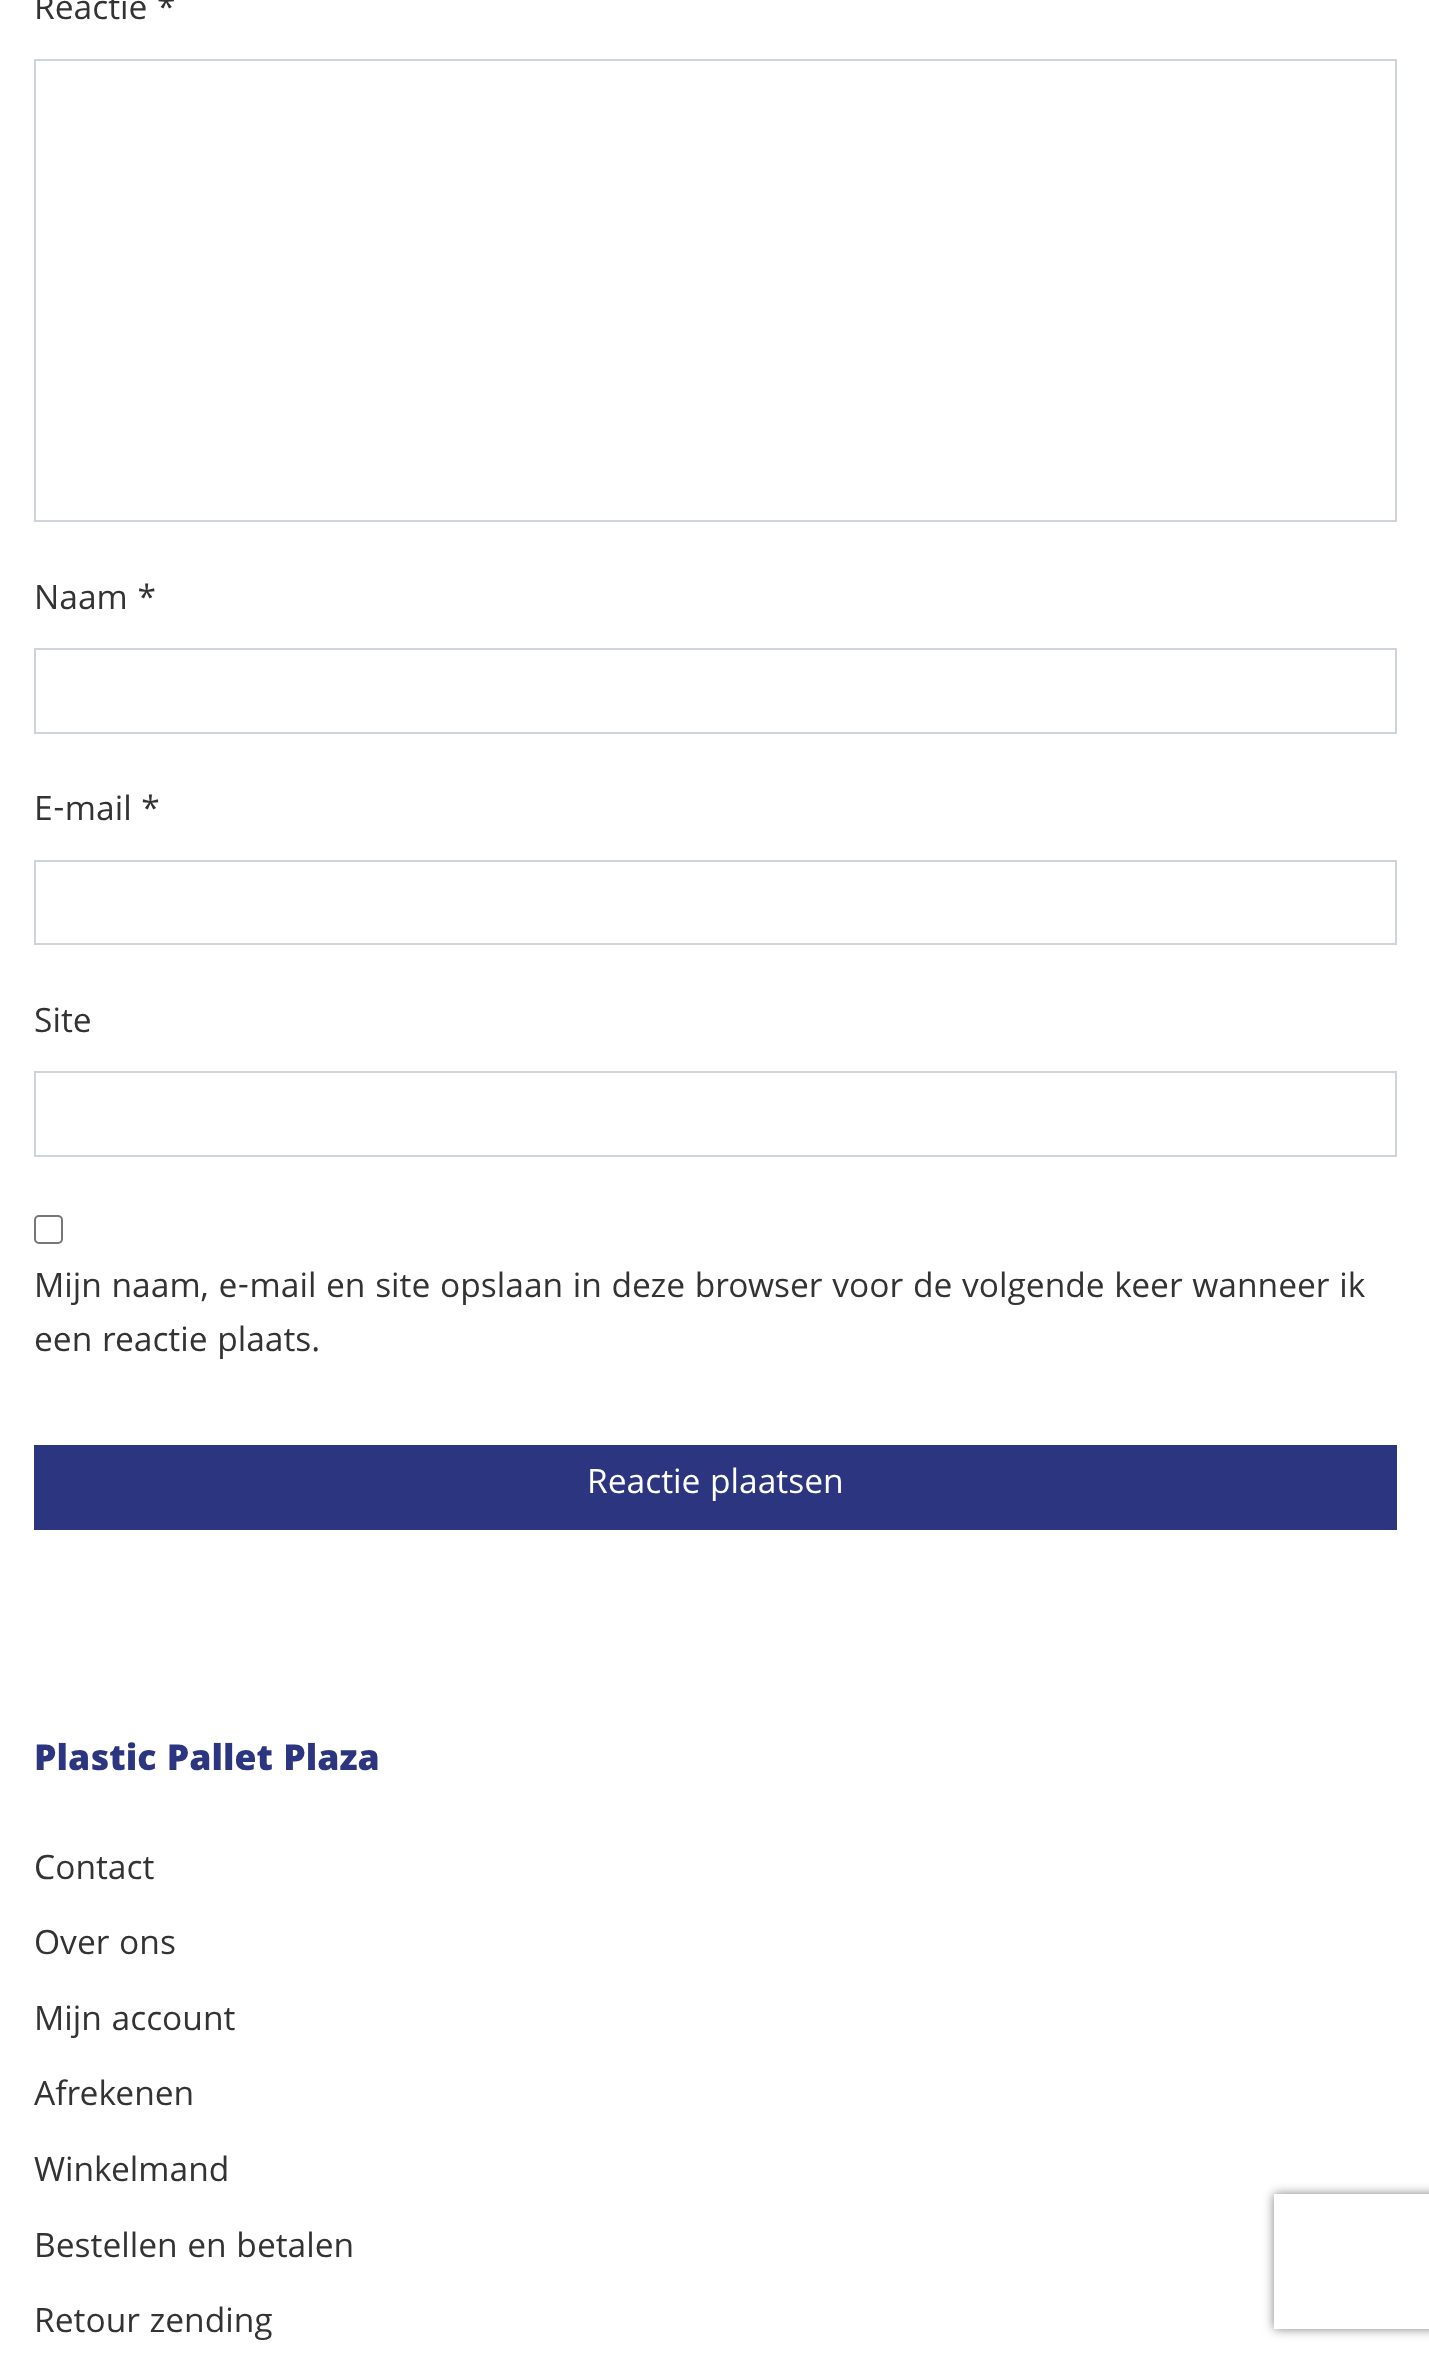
(async () => {
    const canvas = document.querySelector("canvas");
    canvas.width = 1429;
    canvas.height = 2359;
    const context = canvas.getContext("2d");
    context.miterLimit = 4;
    context.fontKerning = "normal";
    function write(s, x, y, font, color) {
        context.font = font;
        context.fillStyle = color;
        context.fillText(s, x, y);
    }
    function block(x, y, w, h, color) {
        context.fillStyle = color;
        context.fillRect(x, y, w, h);
    }

    block(0, 0, 1429, 2359, "rgb(255, 255, 255)");
    write("Reactie *", 34, 19, "36px Khula", "rgb(51, 51, 51)");
    context.strokeStyle = "rgb(206, 212, 218)";
    context.lineWidth = 2;
    context.strokeRect(35, 60, 1361, 461);
    write("Naam *", 34, 609, "36px Khula", "rgb(51, 51, 51)");
    context.strokeRect(35, 649, 1361, 84);
    write("E-mail *", 34, 820, "36px Khula", "rgb(51, 51, 51)");
    context.strokeRect(35, 861, 1361, 83);
    write("Site", 34, 1032, "36px Khula", "rgb(51, 51, 51)");
    context.strokeRect(35, 1072, 1361, 84);
    context.beginPath();
    context.roundRect(35, 1216, 27, 27, 4);
    context.strokeStyle = "rgb(118, 118, 118)";
    context.stroke();
    write("Mijn naam, e-mail en site opslaan in deze browser voor de volgende keer wanneer ik", 34, 1297, "36px Khula", "rgb(51, 51, 51)");
    write("een reactie plaats.", 34, 1351, "36px Khula", "rgb(51, 51, 51)");
    context.fillStyle = "rgb(44, 53, 127)";
    context.beginPath();
    context.rect(35, 1446, 1361, 83);
    context.fill();
    context.strokeStyle = "rgb(44, 53, 127)";
    context.stroke();
    write("Reactie plaatsen", 587, 1493, "36px Khula", "rgb(255, 255, 255)");
    write("Plastic Pallet Plaza", 34, 1770, "800 38.25px Khula", "rgb(44, 53, 127)");
    write("Contact", 34, 1879, "36px Khula", "rgb(51, 51, 51)");
    write("Over ons", 34, 1954, "36px Khula", "rgb(51, 51, 51)");
    write("Mijn account", 34, 2030, "36px Khula", "rgb(51, 51, 51)");
    write("Afrekenen", 34, 2105, "36px Khula", "rgb(51, 51, 51)");
    write("Winkelmand", 34, 2181, "36px Khula", "rgb(51, 51, 51)");
    write("Bestellen en betalen", 34, 2257, "36px Khula", "rgb(51, 51, 51)");
    write("Retour zending", 34, 2332, "36px Khula", "rgb(51, 51, 51)");
    context.save();
    context.beginPath();
    context.moveTo(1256, 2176);
    context.lineTo(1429, 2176);
    context.lineTo(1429, 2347);
    context.lineTo(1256, 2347);
    context.closePath();
    context.moveTo(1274, 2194);
    context.lineTo(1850, 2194);
    context.lineTo(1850, 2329);
    context.lineTo(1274, 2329);
    context.closePath();
    context.clip("evenodd");
    context.fillStyle = "rgb(128, 128, 128)";
    context.filter = "blur(5.5px)";
    context.beginPath();
    context.rect(1274, 2194, 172, 135);
    context.fill();
    context.filter = "none";
    context.restore();
})();
